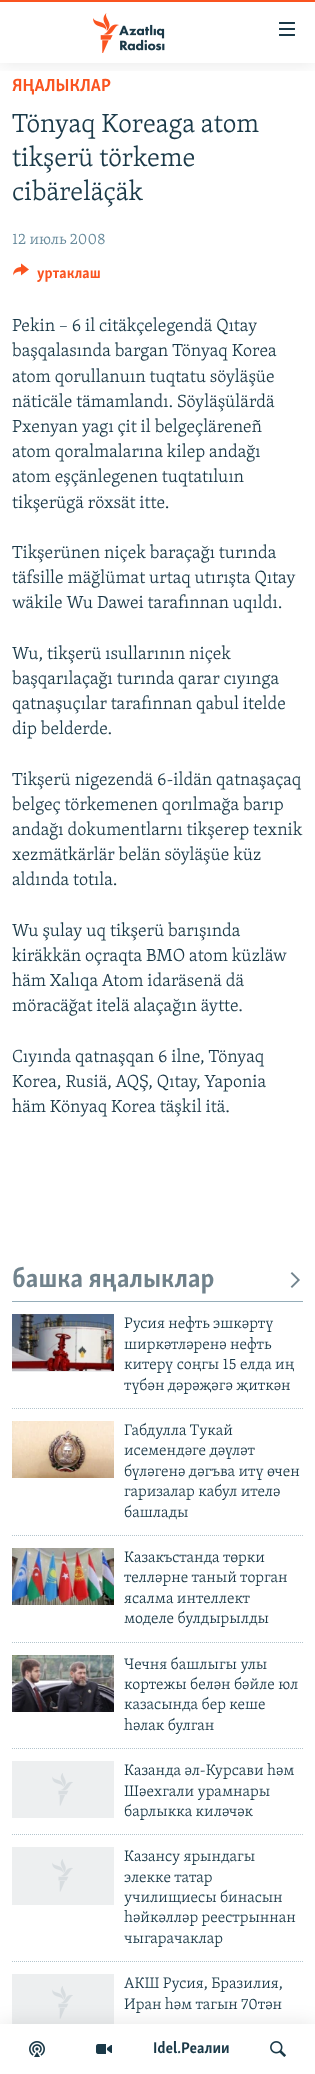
(async () => {
    const canvas = document.querySelector("canvas");
    canvas.width = 315;
    canvas.height = 2074;
    const context = canvas.getContext("2d");
    context.miterLimit = 4;
    context.fontKerning = "normal";
    function write(s, x, y, font, color) {
        context.font = font;
        context.fillStyle = color;
        context.fillText(s, x, y);
    }
    function block(x, y, w, h, color) {
        context.fillStyle = color;
        context.fillRect(x, y, w, h);
    }
    async function photo(src, x, y, w, h) {
        const img = new Image();
        img.src = src;
        await img.decode();
        context.drawImage(img, x, y, w, h);
    }

    block(0, 0, 315, 2074, "rgb(255, 255, 255)");
    write("ЯҢАЛЫКЛАР", 12, 91, "bold 18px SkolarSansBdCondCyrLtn", "rgb(250, 84, 32)");
    write("Tönyaq Koreaga atom", 12, 132, "300 27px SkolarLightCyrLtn", "rgb(26, 57, 72)");
    write("tikşerü törkeme", 12, 166, "300 27px SkolarLightCyrLtn", "rgb(26, 57, 72)");
    write("cibäreläçäk", 12, 200, "300 27px SkolarLightCyrLtn", "rgb(26, 57, 72)");
    write("12 июль 2008", 12, 244, "300 15.75px SkolarLightCyrLtn", "rgb(103, 138, 155)");
    await photo("media/1.png", 13, 263, 16, 13);
    write("уртаклаш", 37, 278, "bold 15.75px SkolarSansBdCondCyrLtn", "rgb(250, 84, 32)");
    write("Pekin – 6 il citäkçelegendä Qıtay", 12, 331, "300 18px SkolarLightCyrLtn", "rgb(26, 57, 72)");
    write("başqalasında bargan Tönyaq Korea", 12, 356, "300 18px SkolarLightCyrLtn", "rgb(26, 57, 72)");
    write("atom qorullanuın tuqtatu söyläşüe", 12, 382, "300 18px SkolarLightCyrLtn", "rgb(26, 57, 72)");
    write("näticäle tämamlandı. Söyläşülärdä", 12, 407, "300 18px SkolarLightCyrLtn", "rgb(26, 57, 72)");
    write("Pxenyan yagı çit il belgeçläreneñ", 12, 432, "300 18px SkolarLightCyrLtn", "rgb(26, 57, 72)");
    write("atom qoralmalarına kilep andağı", 12, 457, "300 18px SkolarLightCyrLtn", "rgb(26, 57, 72)");
    write("atom eşçänlegenen tuqtatıluın", 12, 482, "300 18px SkolarLightCyrLtn", "rgb(26, 57, 72)");
    write("tikşerügä röxsät itte.", 12, 508, "300 18px SkolarLightCyrLtn", "rgb(26, 57, 72)");
    write("Tikşerünen niçek baraçağı turında", 12, 558, "300 18px SkolarLightCyrLtn", "rgb(26, 57, 72)");
    write("täfsille mäğlümat urtaq utırışta Qıtay", 12, 583, "300 18px SkolarLightCyrLtn", "rgb(26, 57, 72)");
    write("wäkile Wu Dawei tarafınnan uqıldı.", 12, 608, "300 18px SkolarLightCyrLtn", "rgb(26, 57, 72)");
    write("Wu, tikşerü ısullarının niçek", 12, 659, "300 18px SkolarLightCyrLtn", "rgb(26, 57, 72)");
    write("başqarılaçağı turında qarar cıyınga", 12, 684, "300 18px SkolarLightCyrLtn", "rgb(26, 57, 72)");
    write("qatnaşuçılar tarafınnan qabul itelde", 12, 709, "300 18px SkolarLightCyrLtn", "rgb(26, 57, 72)");
    write("dip belderde.", 12, 734, "300 18px SkolarLightCyrLtn", "rgb(26, 57, 72)");
    write("Tikşerü nigezendä 6-ildän qatnaşaçaq", 12, 785, "300 18px SkolarLightCyrLtn", "rgb(26, 57, 72)");
    write("belgeç törkemenen qorılmağa barıp", 12, 810, "300 18px SkolarLightCyrLtn", "rgb(26, 57, 72)");
    write("andağı dokumentlarnı tikşerep texnik", 12, 835, "300 18px SkolarLightCyrLtn", "rgb(26, 57, 72)");
    write("xezmätkärlär belän söyläşüe küz", 12, 860, "300 18px SkolarLightCyrLtn", "rgb(26, 57, 72)");
    write("aldında totıla.", 12, 885, "300 18px SkolarLightCyrLtn", "rgb(26, 57, 72)");
    write("Wu şulay uq tikşerü barışında", 12, 936, "300 18px SkolarLightCyrLtn", "rgb(26, 57, 72)");
    write("kiräkkän oçraqta BMO atom küzläw", 12, 961, "300 18px SkolarLightCyrLtn", "rgb(26, 57, 72)");
    write("häm Xalıqa Atom idaräsenä dä", 12, 986, "300 18px SkolarLightCyrLtn", "rgb(26, 57, 72)");
    write("möracäğat itelä alaçağın äytte.", 12, 1011, "300 18px SkolarLightCyrLtn", "rgb(26, 57, 72)");
    write("Cıyında qatnaşqan 6 ilne, Tönyaq", 12, 1062, "300 18px SkolarLightCyrLtn", "rgb(26, 57, 72)");
    write("Korea, Rusiä, AQŞ, Qıtay, Yaponia", 12, 1087, "300 18px SkolarLightCyrLtn", "rgb(26, 57, 72)");
    write("häm Könyaq Korea täşkil itä.", 12, 1112, "300 18px SkolarLightCyrLtn", "rgb(26, 57, 72)");
    block(12, 1301, 291, 1, "rgb(149, 173, 185)");
    write("башка яңалыклар", 12, 1287, "bold 27px SkolarSansBdCondCyrLtn", "rgb(113, 131, 141)");
    await photo("media/2.png", 290, 1272, 10, 16);
    block(12, 1371, 102, 1, "rgb(237, 239, 240)");
    await photo("media/3.png", 12, 1314, 102, 57);
    write("Русия нефть эшкәртү", 124, 1328, "300 15.75px SkolarLightCyrLtn", "rgb(26, 57, 72)");
    write("ширкәтләренә нефть", 124, 1349, "300 15.75px SkolarLightCyrLtn", "rgb(26, 57, 72)");
    write("китерү соңгы 15 елда иң", 124, 1369, "300 15.75px SkolarLightCyrLtn", "rgb(26, 57, 72)");
    write("түбән дәрәҗәгә җиткән", 124, 1390, "300 15.75px SkolarLightCyrLtn", "rgb(26, 57, 72)");
    context.beginPath();
    context.moveTo(12, 1408.5);
    context.lineTo(303, 1408.5);
    context.strokeStyle = "rgb(180, 197, 205)";
    context.setLineDash([1, 1]);
    context.stroke();
    await photo("media/4.png", 12, 1421, 102, 57);
    write("Габдулла Тукай", 124, 1435, "300 15.75px SkolarLightCyrLtn", "rgb(26, 57, 72)");
    write("исемендәге дәүләт", 124, 1455, "300 15.75px SkolarLightCyrLtn", "rgb(26, 57, 72)");
    write("бүләгенә дәгъва итү өчен", 124, 1476, "300 15.75px SkolarLightCyrLtn", "rgb(26, 57, 72)");
    write("гаризалар кабул ителә", 124, 1496, "300 15.75px SkolarLightCyrLtn", "rgb(26, 57, 72)");
    write("башлады", 124, 1517, "300 15.75px SkolarLightCyrLtn", "rgb(26, 57, 72)");
    context.beginPath();
    context.moveTo(12, 1535.5);
    context.lineTo(303, 1535.5);
    context.stroke();
    await photo("media/5.png", 12, 1548, 102, 57);
    write("Казакъстанда төрки", 124, 1562, "300 15.75px SkolarLightCyrLtn", "rgb(26, 57, 72)");
    write("телләрне таный торган", 124, 1582, "300 15.75px SkolarLightCyrLtn", "rgb(26, 57, 72)");
    write("ясалма интеллект", 124, 1603, "300 15.75px SkolarLightCyrLtn", "rgb(26, 57, 72)");
    write("моделе булдырылды", 124, 1623, "300 15.75px SkolarLightCyrLtn", "rgb(26, 57, 72)");
    context.beginPath();
    context.moveTo(12, 1642.5);
    context.lineTo(303, 1642.5);
    context.stroke();
    await photo("media/6.png", 12, 1655, 102, 57);
    write("Чечня башлыгы улы", 124, 1669, "300 15.75px SkolarLightCyrLtn", "rgb(26, 57, 72)");
    write("кортежы белән бәйле юл", 124, 1689, "300 15.75px SkolarLightCyrLtn", "rgb(26, 57, 72)");
    write("казасында бер кеше", 124, 1709, "300 15.75px SkolarLightCyrLtn", "rgb(26, 57, 72)");
    write("һәлак булган", 124, 1730, "300 15.75px SkolarLightCyrLtn", "rgb(26, 57, 72)");
    context.beginPath();
    context.moveTo(12, 1748.5);
    context.lineTo(303, 1748.5);
    context.stroke();
    block(12, 1761, 102, 57, "rgb(237, 239, 240)");
    await photo("media/7.png", 52, 1773, 21, 33);
    write("Казанда әл-Курсави һәм", 124, 1775, "300 15.75px SkolarLightCyrLtn", "rgb(26, 57, 72)");
    write("Шәехгали урамнары", 124, 1796, "300 15.75px SkolarLightCyrLtn", "rgb(26, 57, 72)");
    write("барлыкка киләчәк", 124, 1816, "300 15.75px SkolarLightCyrLtn", "rgb(26, 57, 72)");
    context.beginPath();
    context.moveTo(12, 1834.5);
    context.lineTo(303, 1834.5);
    context.stroke();
    block(12, 1847, 102, 58, "rgb(237, 239, 240)");
    await photo("media/7.png", 52, 1859, 21, 33);
    write("Казансу ярындагы", 124, 1861, "300 15.75px SkolarLightCyrLtn", "rgb(26, 57, 72)");
    write("элекке татар", 124, 1882, "300 15.75px SkolarLightCyrLtn", "rgb(26, 57, 72)");
    write("училищиесы бинасын", 124, 1902, "300 15.75px SkolarLightCyrLtn", "rgb(26, 57, 72)");
    write("һәйкәлләр реестрыннан", 124, 1922, "300 15.75px SkolarLightCyrLtn", "rgb(26, 57, 72)");
    write("чыгарачаклар", 124, 1943, "300 15.75px SkolarLightCyrLtn", "rgb(26, 57, 72)");
    context.beginPath();
    context.moveTo(12, 1961.5);
    context.lineTo(303, 1961.5);
    context.stroke();
    block(12, 1974, 102, 50, "rgb(237, 239, 240)");
    await photo("media/7.png", 52, 1986, 21, 33);
    write("АКШ Русия, Бразилия,", 124, 1988, "300 15.75px SkolarLightCyrLtn", "rgb(26, 57, 72)");
    write("Иран һәм тагын 70тән", 124, 2009, "300 15.75px SkolarLightCyrLtn", "rgb(26, 57, 72)");
    context.save();
    context.beginPath();
    context.rect(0, 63, 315, 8);
    context.clip();
    context.fillStyle = "rgba(0, 0, 0, 0.1)";
    context.filter = "blur(10px)";
    context.beginPath();
    context.rect(0, 0, 315, 63);
    context.fill();
    context.filter = "none";
    context.restore();
    block(0, 0, 315, 2, "rgb(250, 84, 32)");
    await photo("media/8.png", 93, 13, 72, 40);
    await photo("media/9.png", 279, 22, 16, 14);
    context.fillStyle = "rgba(0, 0, 0, 0.1)";
    context.filter = "blur(10px)";
    context.beginPath();
    context.rect(0, 2024, 315, 50);
    context.fill();
    context.filter = "none";
    block(0, 2024, 315, 50, "rgb(255, 255, 255)");
    await photo("media/10.png", 29, 2041, 16, 16);
    await photo("media/11.png", 96, 2044, 16, 10);
    write("Idel.Реалии", 153, 2053, "bold 16px SkolarSansBdCondCyrLtn", "rgb(26, 57, 72)");
    await photo("media/12.png", 270, 2041, 16, 16);
})();
